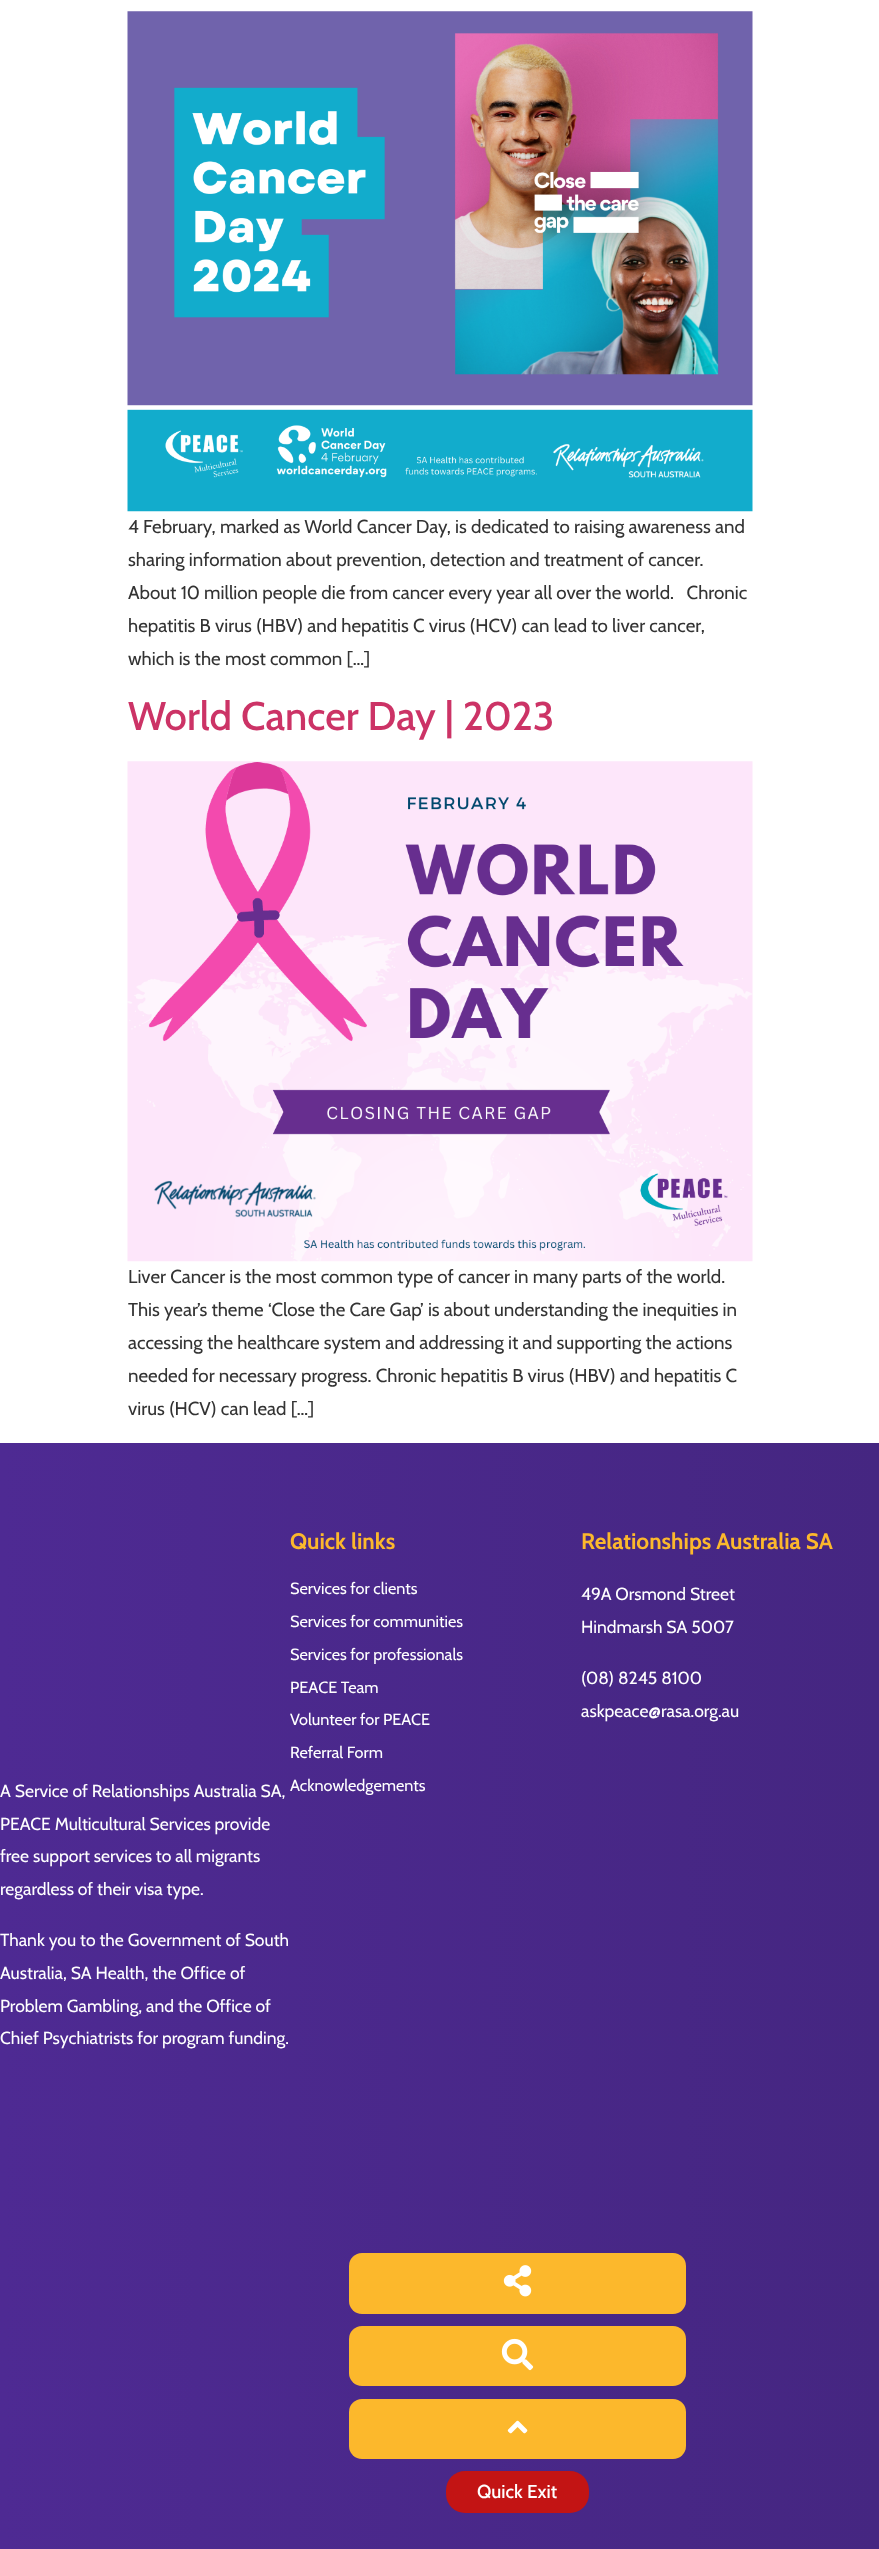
(async () => {
    const canvas = document.querySelector("canvas");
    canvas.width = 879;
    canvas.height = 2549;
    const context = canvas.getContext("2d");
    context.miterLimit = 4;
    context.fontKerning = "normal";
    function write(s, x, y, font, color) {
        context.font = font;
        context.fillStyle = color;
        context.fillText(s, x, y);
    }
    function block(x, y, w, h, color) {
        context.fillStyle = color;
        context.fillRect(x, y, w, h);
    }
    function card(x, y, w, h, r, color) {
        context.fillStyle = color;
        context.beginPath();
        context.roundRect(x, y, w, h, r);
        context.fill();
    }
    async function photo(src, x, y, w, h) {
        const img = new Image();
        img.src = src;
        await img.decode();
        context.drawImage(img, x, y, w, h);
    }
    let gradient;

    block(0, 0, 879, 2549, "rgb(255, 255, 255)");
    await photo("media/1.png", 127, 11, 626, 501);
    write("4 February, marked as World Cancer Day, is dedicated to raising awareness and", 128, 533, "18.75px Cabin", "rgb(51, 51, 51)");
    write("sharing information about prevention, detection and treatment of cancer.", 128, 566, "18.75px Cabin", "rgb(51, 51, 51)");
    write("About 10 million people die from cancer every year all over the world.   Chronic", 128, 599, "18.75px Cabin", "rgb(51, 51, 51)");
    write("hepatitis B virus (HBV) and hepatitis C virus (HCV) can lead to liver cancer,", 128, 632, "18.75px Cabin", "rgb(51, 51, 51)");
    write("which is the most common […]", 128, 665, "18.75px Cabin", "rgb(51, 51, 51)");
    write("World Cancer Day | 2023", 128, 730, "500 40px Cabin", "rgb(204, 51, 102)");
    await photo("media/2.png", 127, 761, 626, 501);
    write("Liver Cancer is the most common type of cancer in many parts of the world.", 128, 1283, "18.75px Cabin", "rgb(51, 51, 51)");
    write("This year’s theme ‘Close the Care Gap’ is about understanding the inequities in", 128, 1316, "18.75px Cabin", "rgb(51, 51, 51)");
    write("accessing the healthcare system and addressing it and supporting the actions", 128, 1349, "18.75px Cabin", "rgb(51, 51, 51)");
    write("needed for necessary progress. Chronic hepatitis B virus (HBV) and hepatitis C", 128, 1382, "18.75px Cabin", "rgb(51, 51, 51)");
    write("virus (HCV) can lead […]", 128, 1415, "18.75px Cabin", "rgb(51, 51, 51)");
    gradient = context.createLinearGradient(0, 2020, 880, 2020);
    gradient.addColorStop(0, "rgb(78, 42, 147)");
    gradient.addColorStop(1, "rgb(69, 38, 129)");
    context.fillStyle = gradient;
    context.fillRect(0, 1443, 879, 1106);
    write("Quick links", 290, 1549, "bold 22.5px Cabin", "rgb(252, 184, 44)");
    write("Services for clients", 290, 1594, "16.25px Cabin", "rgb(255, 255, 255)");
    write("Services for communities", 290, 1627, "16.25px Cabin", "rgb(255, 255, 255)");
    write("Services for professionals", 290, 1660, "16.25px Cabin", "rgb(255, 255, 255)");
    write("PEACE Team", 290, 1693, "16.25px Cabin", "rgb(255, 255, 255)");
    write("Volunteer for PEACE", 290, 1725, "16.25px Cabin", "rgb(255, 255, 255)");
    write("Referral Form", 290, 1758, "16.25px Cabin", "rgb(255, 255, 255)");
    write("Acknowledgements", 290, 1791, "16.25px Cabin", "rgb(255, 255, 255)");
    write("Relationships Australia SA", 581, 1549, "bold 22.5px Cabin", "rgb(252, 184, 44)");
    write("49A Orsmond Street", 581, 1600, "17.5px Cabin", "rgb(255, 255, 255)");
    write("Hindmarsh SA 5007", 581, 1633, "17.5px Cabin", "rgb(255, 255, 255)");
    write("(08) 8245 8100", 581, 1684, "17.5px Cabin", "rgb(255, 255, 255)");
    write("askpeace@rasa.org.au", 581, 1717, "17.5px Cabin", "rgb(255, 255, 255)");
    write("A Service of Relationships Australia SA,", 0, 1797, "17.5px Cabin", "rgb(255, 255, 255)");
    write("PEACE Multicultural Services provide", 0, 1830, "17.5px Cabin", "rgb(255, 255, 255)");
    write("free support services to all migrants", 0, 1862, "17.5px Cabin", "rgb(255, 255, 255)");
    write("regardless of their visa type.", 0, 1895, "17.5px Cabin", "rgb(255, 255, 255)");
    write("Thank you to the Government of South", 0, 1946, "17.5px Cabin", "rgb(255, 255, 255)");
    write("Australia, SA Health, the Office of", 0, 1979, "17.5px Cabin", "rgb(255, 255, 255)");
    write("Problem Gambling, and the Office of", 0, 2012, "17.5px Cabin", "rgb(255, 255, 255)");
    write("Chief Psychiatrists for program funding.", 0, 2044, "17.5px Cabin", "rgb(255, 255, 255)");
    card(349, 2253, 337, 61, 13, "rgb(252, 184, 44)");
    await photo("media/3.png", 503, 2265, 29, 32);
    card(349, 2326, 337, 60, 13, "rgb(252, 184, 44)");
    await photo("media/4.png", 501, 2338, 33, 33);
    card(349, 2399, 337, 60, 13, "rgb(252, 184, 44)");
    await photo("media/5.png", 507, 2420, 21, 14);
    card(446, 2471, 143, 42, 19, "rgb(195, 20, 20)");
    write("Quick Exit", 477, 2498, "500 18.75px Cabin", "rgb(255, 255, 255)");
})();
